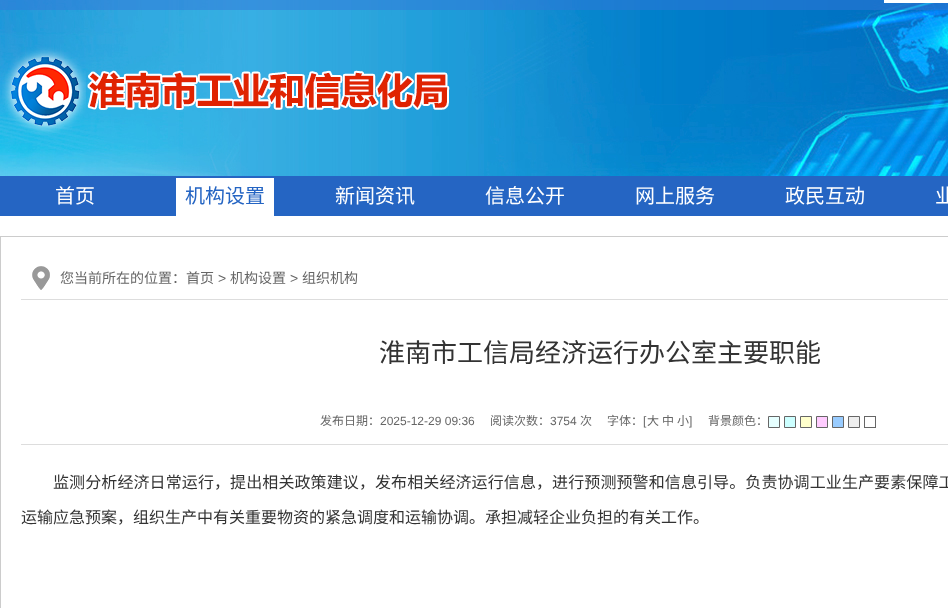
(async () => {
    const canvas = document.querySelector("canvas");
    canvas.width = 948;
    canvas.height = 608;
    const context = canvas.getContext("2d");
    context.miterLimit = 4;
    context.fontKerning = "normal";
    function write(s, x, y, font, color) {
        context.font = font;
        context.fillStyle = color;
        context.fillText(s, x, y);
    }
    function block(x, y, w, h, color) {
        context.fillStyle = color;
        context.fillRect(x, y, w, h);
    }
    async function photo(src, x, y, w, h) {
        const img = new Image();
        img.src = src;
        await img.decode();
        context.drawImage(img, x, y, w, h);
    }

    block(0, 0, 948, 608, "rgb(255, 255, 255)");
    await photo("media/1.png", 0, 0, 948, 176);
    block(0, 0, 948, 10, "rgba(52, 118, 215, 0.5)");
    block(884, 0, 64, 3, "rgb(255, 255, 255)");
    await photo("media/2.png", 2, 47, 448, 88);
    block(0, 176, 948, 40, "rgb(37, 101, 195)");
    write("首页", 55, 203, "20px Noto Sans CJK SC", "rgb(255, 255, 255)");
    block(176, 178, 98, 38, "rgb(255, 255, 255)");
    write("机构设置", 185, 203, "20px Noto Sans CJK SC", "rgb(37, 101, 195)");
    write("新闻资讯", 335, 203, "20px Noto Sans CJK SC", "rgb(255, 255, 255)");
    write("信息公开", 485, 203, "20px Noto Sans CJK SC", "rgb(255, 255, 255)");
    write("网上服务", 635, 203, "20px Noto Sans CJK SC", "rgb(255, 255, 255)");
    write("政民互动", 785, 203, "20px Noto Sans CJK SC", "rgb(255, 255, 255)");
    write("业", 935, 203, "20px Noto Sans CJK SC", "rgb(255, 255, 255)");
    context.strokeStyle = "rgb(204, 204, 204)";
    context.strokeRect(0.5, 236.5, 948, 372);
    await photo("media/3.png", 32, 266, 18, 24);
    block(21, 299, 927, 1, "rgb(221, 221, 221)");
    write("您当前所在的位置：首页", 60, 283, "14px Noto Sans CJK SC", "rgb(102, 102, 102)");
    write(">", 218, 283, "14px Liberation Sans", "rgb(102, 102, 102)");
    write("机构设置", 230, 283, "14px Noto Sans CJK SC", "rgb(102, 102, 102)");
    write(">", 290, 283, "14px Liberation Sans", "rgb(102, 102, 102)");
    write("组织机构", 302, 283, "14px Noto Sans CJK SC", "rgb(102, 102, 102)");
    write("淮南市工信局经济运行办公室主要职能", 379, 362, "26px Noto Sans CJK SC", "rgb(51, 51, 51)");
    block(21, 444, 927, 1, "rgb(221, 221, 221)");
    write("发布日期：", 320, 425, "12px Noto Sans CJK SC", "rgb(102, 102, 102)");
    write("2025-12-29 09:36", 380, 425, "12px Liberation Sans", "rgb(102, 102, 102)");
    write("阅读次数：", 490, 425, "12px Noto Sans CJK SC", "rgb(102, 102, 102)");
    write("3754", 550, 425, "12px Liberation Sans", "rgb(102, 102, 102)");
    write("次", 580, 425, "12px Noto Sans CJK SC", "rgb(102, 102, 102)");
    write("字体：", 607, 425, "12px Noto Sans CJK SC", "rgb(102, 102, 102)");
    write("[", 643, 425, "12px Liberation Sans", "rgb(102, 102, 102)");
    write("大", 647, 425, "12px Noto Sans CJK SC", "rgb(102, 102, 102)");
    write("中", 662, 425, "12px Noto Sans CJK SC", "rgb(102, 102, 102)");
    write("小", 677, 425, "12px Noto Sans CJK SC", "rgb(102, 102, 102)");
    write("]", 689, 425, "12px Liberation Sans", "rgb(102, 102, 102)");
    write("背景颜色：", 708, 425, "12px Noto Sans CJK SC", "rgb(102, 102, 102)");
    context.fillStyle = "rgb(230, 255, 255)";
    context.beginPath();
    context.rect(768.5, 416.5, 11, 11);
    context.fill();
    context.strokeStyle = "rgb(102, 102, 102)";
    context.stroke();
    context.fillStyle = "rgb(204, 255, 255)";
    context.beginPath();
    context.rect(784.5, 416.5, 11, 11);
    context.fill();
    context.stroke();
    context.fillStyle = "rgb(255, 255, 204)";
    context.beginPath();
    context.rect(800.5, 416.5, 11, 11);
    context.fill();
    context.stroke();
    context.fillStyle = "rgb(255, 204, 255)";
    context.beginPath();
    context.rect(816.5, 416.5, 11, 11);
    context.fill();
    context.stroke();
    context.fillStyle = "rgb(153, 204, 255)";
    context.beginPath();
    context.rect(832.5, 416.5, 11, 11);
    context.fill();
    context.stroke();
    context.fillStyle = "rgb(238, 238, 238)";
    context.beginPath();
    context.rect(848.5, 416.5, 11, 11);
    context.fill();
    context.stroke();
    context.strokeRect(864.5, 416.5, 11, 11);
    context.letterSpacing = "0.1px";
    write("监测分析经济日常运行，提出相关政策建议，发布相关经济运行信息，进行预测预警和信息引导。负责协调工业生产要素保障工", 53, 488, "16px Noto Sans CJK SC", "rgb(51, 51, 51)");
    context.letterSpacing = "0px";
    write("运输应急预案，组织生产中有关重要物资的紧急调度和运输协调。承担减轻企业负担的有关工作。", 21, 523, "16px Noto Sans CJK SC", "rgb(51, 51, 51)");
})();
